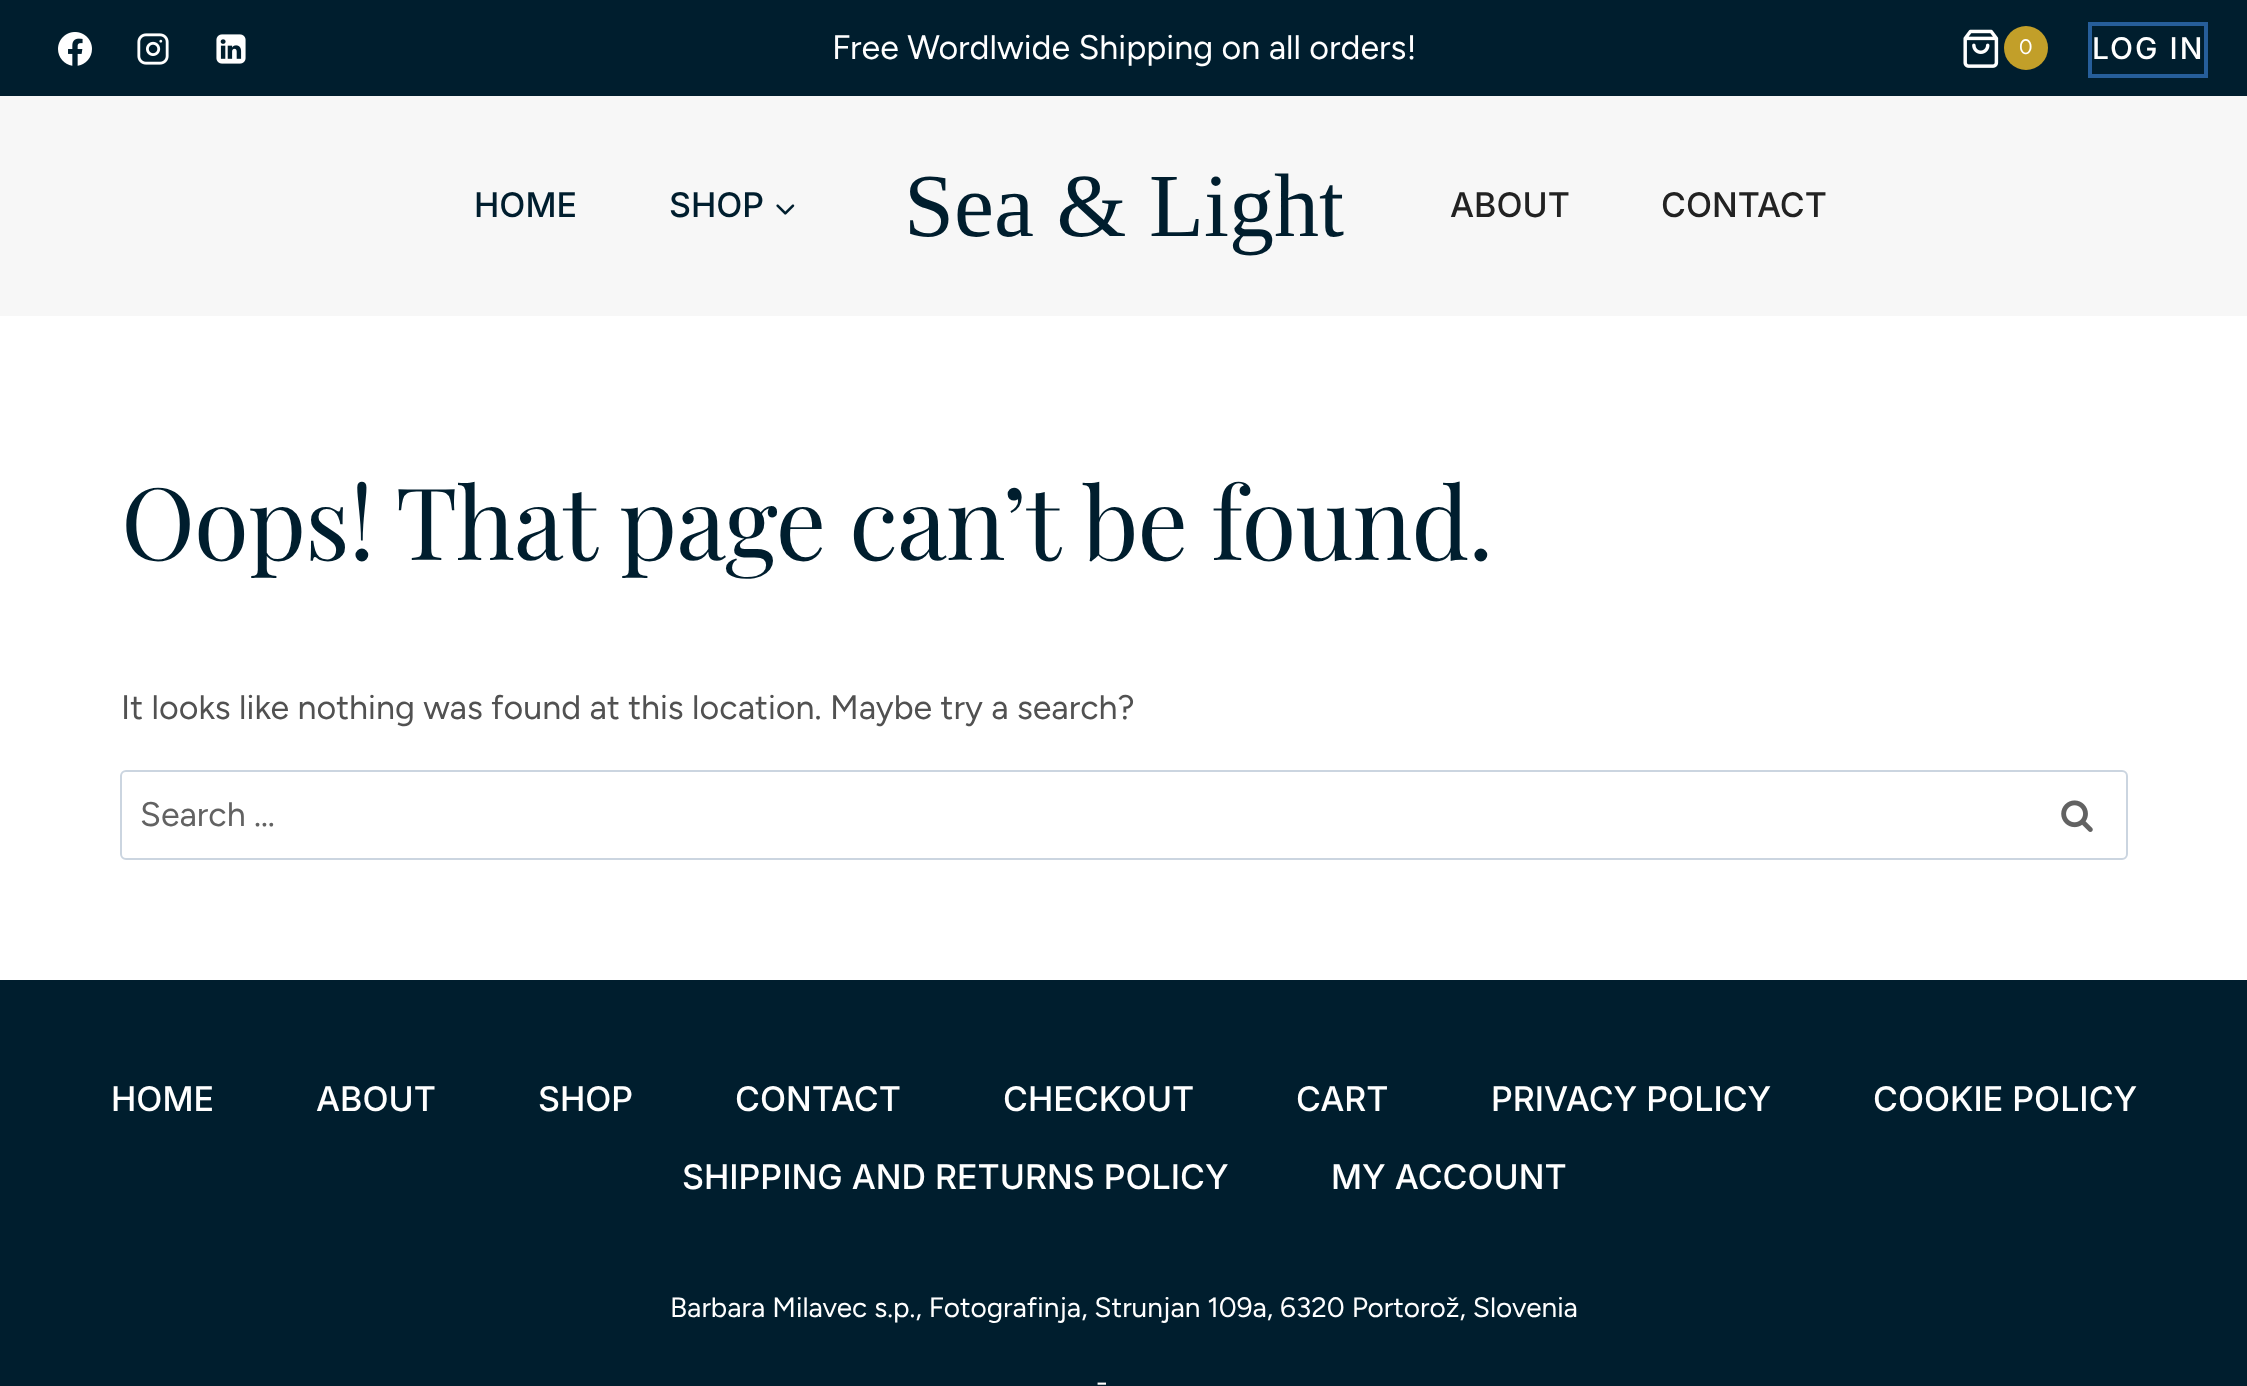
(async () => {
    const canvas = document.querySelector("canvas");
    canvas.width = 2247;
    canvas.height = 1386;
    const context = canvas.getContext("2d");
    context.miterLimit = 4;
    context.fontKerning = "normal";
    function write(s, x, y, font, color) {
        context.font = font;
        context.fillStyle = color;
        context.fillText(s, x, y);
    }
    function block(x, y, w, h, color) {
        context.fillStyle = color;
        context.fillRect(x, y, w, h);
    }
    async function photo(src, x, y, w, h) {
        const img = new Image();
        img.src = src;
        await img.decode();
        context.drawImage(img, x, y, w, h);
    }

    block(0, 0, 2247, 1386, "rgb(255, 255, 255)");
    block(0, 96, 2247, 220, "rgb(247, 247, 247)");
    block(0, 0, 2247, 96, "rgb(0, 30, 46)");
    await photo("media/1.png", 58, 32, 34, 34);
    await photo("media/2.png", 137, 33, 32, 32);
    await photo("media/3.png", 216, 34, 30, 30);
    write("Free Wordlwide Shipping on all orders!", 832, 59, "34px Figtree", "rgb(255, 255, 255)");
    await photo("media/4.png", 1963, 29, 36, 39);
    context.fillStyle = "rgb(194, 159, 41)";
    context.beginPath();
    context.arc(2026, 48, 22, 0, Math.PI * 2);
    context.fill();
    write("0", 2019, 54, "21px Figtree", "rgb(255, 255, 255)");
    context.strokeStyle = "rgb(38, 94, 154)";
    context.lineWidth = 4;
    context.strokeRect(2090, 24, 116, 52);
    context.letterSpacing = "2px";
    write("LOG IN", 2092, 59, "500 30px Inter", "rgb(255, 255, 255)");
    context.letterSpacing = "0px";
    write("HOME", 474, 217, "500 34px Inter", "rgb(0, 30, 46)");
    write("SHOP", 669, 217, "500 34px Inter", "rgb(0, 30, 46)");
    await photo("media/5.png", 776, 204, 19, 11);
    write("Sea & Light", 904, 236, "90px Liberation Serif", "rgb(0, 30, 46)");
    write("ABOUT", 1450, 217, "500 34px Inter", "rgb(34, 34, 34)");
    write("CONTACT", 1661, 217, "500 34px Inter", "rgb(34, 34, 34)");
    context.letterSpacing = "-1px";
    write("Oops! That page can’t be found.", 121, 560, "100px Playfair Display", "rgb(0, 30, 46)");
    context.letterSpacing = "0px";
    write("It looks like nothing was found at this location. Maybe try a search?", 121, 719, "34px Figtree", "rgb(81, 81, 81)");
    context.beginPath();
    context.roundRect(121, 771, 2006, 88, 5);
    context.strokeStyle = "rgb(203, 213, 224)";
    context.lineWidth = 2;
    context.stroke();
    write("Search …", 140, 826, "34px Figtree", "rgb(98, 98, 98)");
    await photo("media/6.png", 2061, 800, 32, 32);
    block(0, 980, 2247, 406, "rgb(0, 30, 46)");
    write("HOME", 111, 1111, "500 34px Inter", "rgb(255, 255, 255)");
    write("ABOUT", 316, 1111, "500 34px Inter", "rgb(255, 255, 255)");
    write("SHOP", 538, 1111, "500 34px Inter", "rgb(255, 255, 255)");
    write("CONTACT", 735, 1111, "500 34px Inter", "rgb(255, 255, 255)");
    write("CHECKOUT", 1003, 1111, "500 34px Inter", "rgb(255, 255, 255)");
    write("CART", 1296, 1111, "500 34px Inter", "rgb(255, 255, 255)");
    write("PRIVACY POLICY", 1491, 1111, "500 34px Inter", "rgb(255, 255, 255)");
    write("COOKIE POLICY", 1873, 1111, "500 34px Inter", "rgb(255, 255, 255)");
    write("SHIPPING AND RETURNS POLICY", 682, 1189, "500 34px Inter", "rgb(255, 255, 255)");
    write("MY ACCOUNT", 1331, 1189, "500 34px Inter", "rgb(255, 255, 255)");
    write("Barbara Milavec s.p., Fotografinja, Strunjan 109a, 6320 Portorož, Slovenia", 670, 1317, "28px Figtree", "rgb(255, 255, 255)");
    write("-", 1096, 1392, "28px Figtree", "rgb(255, 255, 255)");
})();
